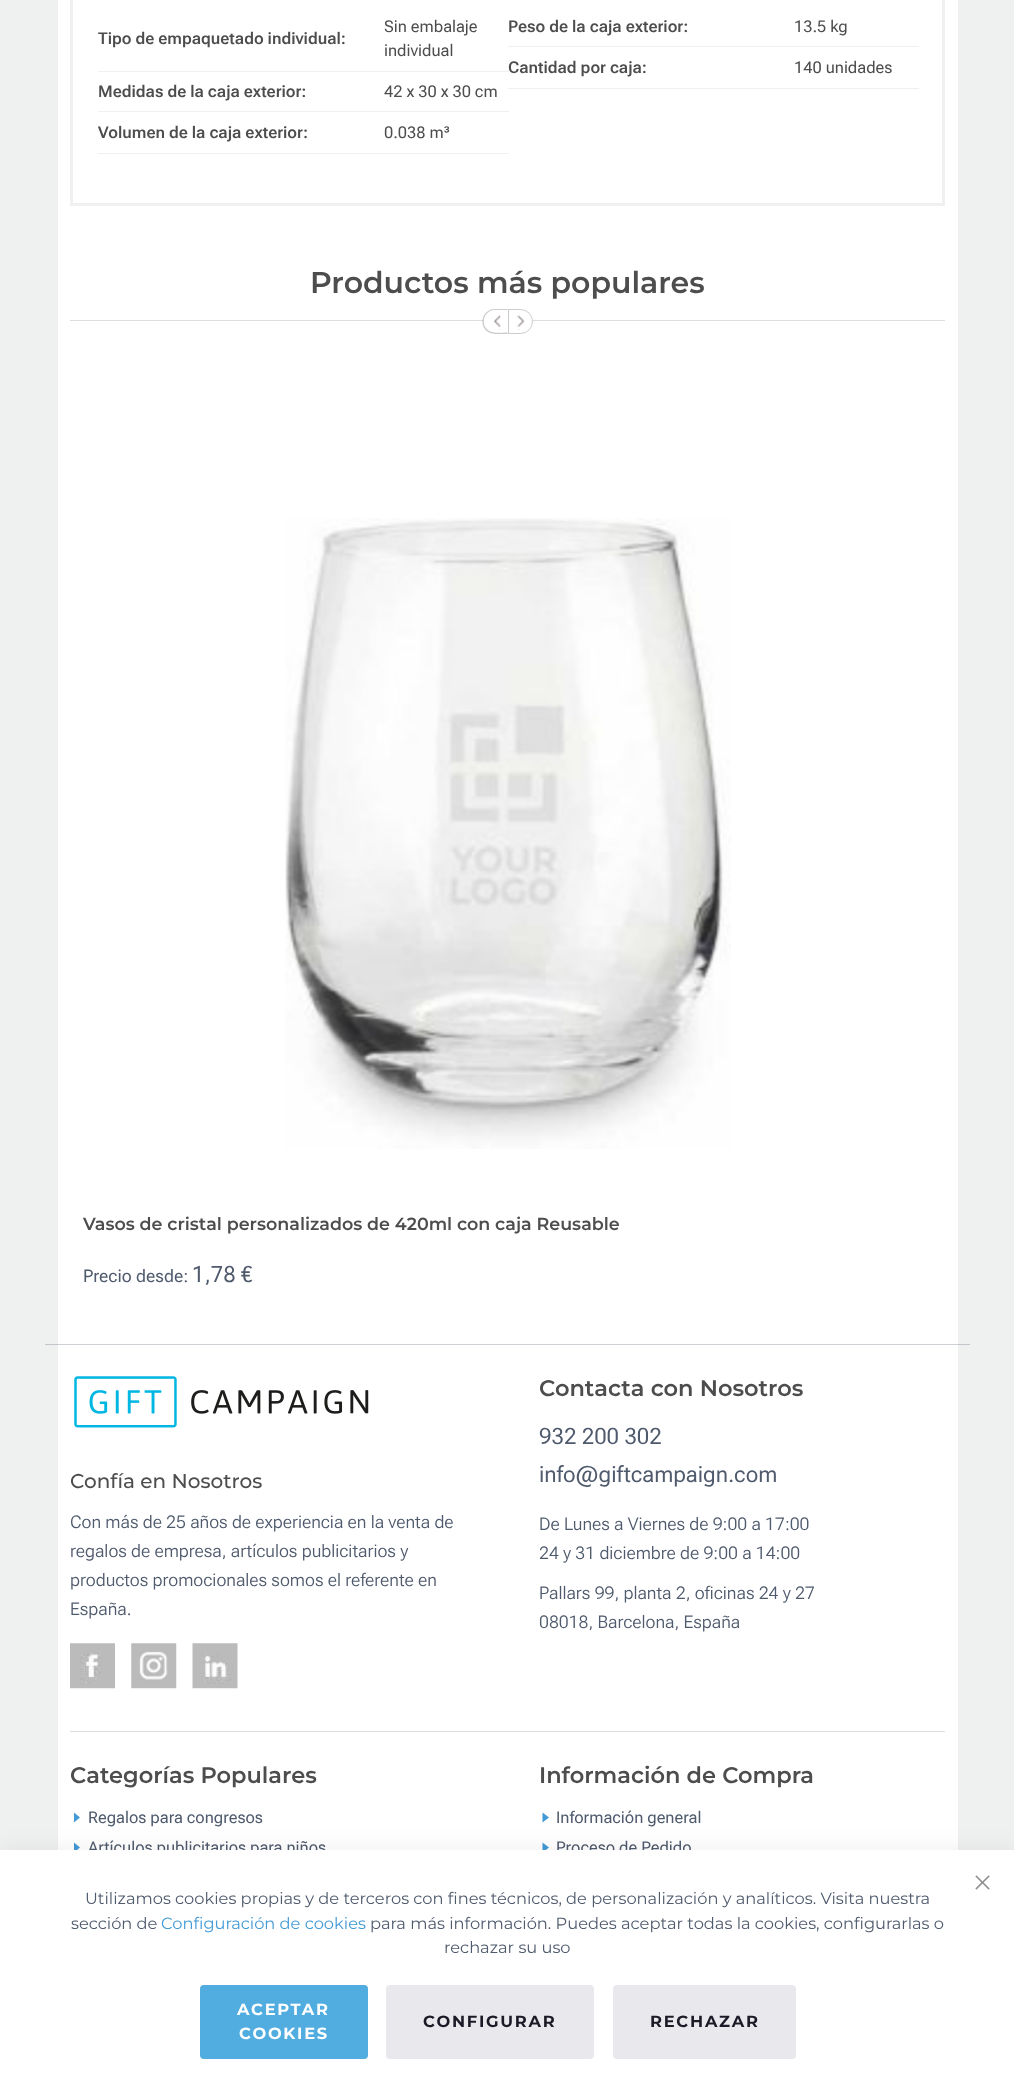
(async () => {
    const canvas = document.querySelector("canvas");
    canvas.width = 1014;
    canvas.height = 2096;
    const context = canvas.getContext("2d");
    context.miterLimit = 4;
    context.fontKerning = "normal";
    function write(s, x, y, font, color) {
        context.font = font;
        context.fillStyle = color;
        context.fillText(s, x, y);
    }
    function block(x, y, w, h, color) {
        context.fillStyle = color;
        context.fillRect(x, y, w, h);
    }
    function card(x, y, w, h, r, color) {
        context.fillStyle = color;
        context.beginPath();
        context.roundRect(x, y, w, h, r);
        context.fill();
    }
    async function photo(src, x, y, w, h) {
        const img = new Image();
        img.src = src;
        await img.decode();
        context.drawImage(img, x, y, w, h);
    }

    block(0, 0, 1014, 2096, "rgb(238, 241, 240)");
    block(45, 1344, 925, 1, "rgb(193, 198, 202)");
    block(58, 0, 900, 1850, "rgb(255, 255, 255)");
    block(58, 1344, 900, 1, "rgb(205, 208, 213)");
    context.strokeStyle = "rgb(240, 240, 240)";
    context.lineWidth = 3;
    context.strokeRect(71.5, -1.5, 872, 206);
    write("Tipo de empaquetado individual:", 98, 44, "600 16.25px Roboto Flex", "rgb(77, 77, 77)");
    block(98, 71, 411, 1, "rgb(240, 240, 240)");
    write("Sin embalaje", 384, 32, "16.25px Roboto Flex", "rgb(77, 77, 77)");
    write("individual", 384, 56, "16.25px Roboto Flex", "rgb(77, 77, 77)");
    write("Medidas de la caja exterior:", 98, 97, "600 16.25px Roboto Flex", "rgb(77, 77, 77)");
    block(98, 111, 411, 1, "rgb(240, 240, 240)");
    write("42 x 30 x 30 cm", 384, 97, "16.25px Roboto Flex", "rgb(77, 77, 77)");
    write("Volumen de la caja exterior:", 98, 138, "600 16.25px Roboto Flex", "rgb(77, 77, 77)");
    block(98, 153, 411, 1, "rgb(240, 240, 240)");
    write("0.038 m³", 384, 138, "16.25px Roboto Flex", "rgb(77, 77, 77)");
    write("Peso de la caja exterior:", 508, 32, "600 16.25px Roboto Flex", "rgb(77, 77, 77)");
    block(508, 46, 411, 1, "rgb(240, 240, 240)");
    write("13.5 kg", 794, 32, "16.25px Roboto Flex", "rgb(77, 77, 77)");
    write("Cantidad por caja:", 508, 73, "600 16.25px Roboto Flex", "rgb(77, 77, 77)");
    block(508, 88, 411, 1, "rgb(240, 240, 240)");
    write("140 unidades", 794, 73, "16.25px Roboto Flex", "rgb(77, 77, 77)");
    block(70, 320, 875, 1, "rgb(222, 222, 222)");
    write("Productos más populares", 310, 293, "600 30px Montserrat", "rgb(77, 77, 77)");
    context.fillStyle = "rgb(255, 255, 255)";
    context.beginPath();
    context.roundRect(483, 309, 25, 25, [12.5, 0, 0, 12.5]);
    context.fill();
    context.fillStyle = "rgba(0, 0, 0, 0.2)";
    context.beginPath();
    context.moveTo(495, 309);
    context.lineTo(507.5, 309);
    context.lineTo(507.5, 334);
    context.bezierCurveTo(503, 334, 494.5, 334.5, 490, 333);
    context.bezierCurveTo(477.5, 327.5, 481.5, 309, 495, 309);
    context.closePath();
    context.moveTo(495, 310);
    context.lineTo(507.5, 310);
    context.lineTo(507.5, 332.5);
    context.bezierCurveTo(503, 332.5, 494.5, 333.5, 490.5, 331.5);
    context.bezierCurveTo(479.5, 327, 483, 310, 495, 310);
    context.closePath();
    context.fill("evenodd");
    await photo("media/1.png", 493, 315, 8, 15);
    context.fillStyle = "rgb(255, 255, 255)";
    context.beginPath();
    context.roundRect(508, 309, 25, 25, [0, 12.5, 12.5, 0]);
    context.fill();
    context.beginPath();
    context.roundRect(508.5, 309.5, 24, 24, [0, 12, 12, 0]);
    context.strokeStyle = "rgba(0, 0, 0, 0.2)";
    context.lineWidth = 1;
    context.stroke();
    await photo("media/2.png", 517, 315, 8, 15);
    await photo("media/3.png", 285, 518, 446, 631);
    write("Vasos de cristal personalizados de 420ml con caja Reusable", 83, 1230, "600 17.5px Montserrat", "rgb(77, 77, 77)");
    write("Precio desde:", 83, 1282, "17.5px 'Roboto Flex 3'", "rgb(79, 90, 109)");
    write("1,78 €", 192, 1282, "22.5px 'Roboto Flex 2'", "rgb(79, 90, 109)");
    block(70, 1731, 875, 1, "rgb(222, 222, 222)");
    await photo("media/4.png", 74, 1376, 295, 52);
    write("Confía en Nosotros", 70, 1488, "500 20px Montserrat", "rgb(77, 77, 77)");
    write("Con más de 25 años de experiencia en la venta de", 70, 1528, "300 17.5px Roboto Flex", "rgb(79, 90, 109)");
    write("regalos de empresa, artículos publicitarios y", 70, 1557, "300 17.5px Roboto Flex", "rgb(79, 90, 109)");
    write("productos promocionales somos el referente en", 70, 1586, "300 17.5px Roboto Flex", "rgb(79, 90, 109)");
    write("España.", 70, 1615, "300 17.5px Roboto Flex", "rgb(79, 90, 109)");
    await photo("media/5.png", 70, 1643, 45, 46);
    await photo("media/6.png", 131, 1643, 46, 46);
    await photo("media/7.png", 192, 1643, 46, 46);
    write("Contacta con Nosotros", 539, 1396, "600 22.5px Montserrat", "rgb(77, 77, 77)");
    write("932 200 302", 539, 1444, "22.5px 'Roboto Flex 2'", "rgb(79, 90, 109)");
    write("info@giftcampaign.com", 539, 1482, "22.5px 'Roboto Flex 2'", "rgb(79, 90, 109)");
    write("De Lunes a Viernes de 9:00 a 17:00", 539, 1530, "300 17.5px Roboto Flex", "rgb(79, 90, 109)");
    write("24 y 31 diciembre de 9:00 a 14:00", 539, 1559, "300 17.5px Roboto Flex", "rgb(79, 90, 109)");
    write("Pallars 99, planta 2, oficinas 24 y 27", 539, 1599, "300 17.5px Roboto Flex", "rgb(79, 90, 109)");
    write("08018, Barcelona, España", 539, 1628, "300 17.5px Roboto Flex", "rgb(79, 90, 109)");
    write("Categorías Populares", 70, 1783, "600 22.5px Montserrat", "rgb(77, 77, 77)");
    context.fillStyle = "rgb(66, 154, 214)";
    context.beginPath();
    context.moveTo(74, 1822.5);
    context.lineTo(74, 1812.5);
    context.lineTo(80, 1817.5);
    context.closePath();
    context.fill();
    write("Regalos para congresos", 88, 1823, "16.25px Roboto Flex", "rgb(79, 90, 109)");
    context.fillStyle = "rgb(66, 154, 214)";
    context.beginPath();
    context.moveTo(74, 1852.5);
    context.lineTo(74, 1842.5);
    context.lineTo(80, 1847.5);
    context.closePath();
    context.fill();
    write("Artículos publicitarios para niños", 88, 1853, "16.25px Roboto Flex", "rgb(79, 90, 109)");
    write("Información de Compra", 539, 1783, "600 22.5px Montserrat", "rgb(77, 77, 77)");
    context.fillStyle = "rgb(66, 154, 214)";
    context.beginPath();
    context.moveTo(542.5, 1822.5);
    context.lineTo(542.5, 1812.5);
    context.lineTo(549, 1817.5);
    context.closePath();
    context.fill();
    write("Información general", 556, 1823, "16.25px Roboto Flex", "rgb(79, 90, 109)");
    context.fillStyle = "rgb(66, 154, 214)";
    context.beginPath();
    context.moveTo(542.5, 1852.5);
    context.lineTo(542.5, 1842.5);
    context.lineTo(549, 1847.5);
    context.closePath();
    context.fill();
    write("Proceso de Pedido", 556, 1853, "16.25px Roboto Flex", "rgb(79, 90, 109)");
    context.fillStyle = "rgba(0, 0, 0, 0.06)";
    context.filter = "blur(11px)";
    context.beginPath();
    context.rect(0, 1848, 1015, 246);
    context.fill();
    context.filter = "none";
    block(0, 1850, 1014, 246, "rgb(255, 255, 255)");
    await photo("media/8.png", 975, 1875, 15, 15);
    write("Utilizamos cookies propias y de terceros con fines técnicos, de personalización y analíticos. Visita nuestra", 85, 1904, "16.25px Montserrat", "rgb(79, 90, 109)");
    write("sección de", 71, 1929, "16.25px Montserrat", "rgb(79, 90, 109)");
    write("Configuración de cookies", 161, 1929, "16.25px Montserrat", "rgb(66, 154, 214)");
    write("para más información. Puedes aceptar todas la cookies, configurarlas o", 370, 1929, "16.25px Montserrat", "rgb(79, 90, 109)");
    write("rechazar su uso", 444, 1953, "16.25px Montserrat", "rgb(79, 90, 109)");
    card(200, 1985, 168, 74, 4, "rgb(81, 172, 224)");
    context.letterSpacing = "1.75px";
    write("ACEPTAR", 237, 2015, "bold 16.25px Montserrat", "rgb(255, 255, 255)");
    write("COOKIES", 239, 2039, "bold 16.25px Montserrat", "rgb(255, 255, 255)");
    card(386, 1985, 208, 74, 4, "rgb(233, 233, 237)");
    write("CONFIGURAR", 423, 2027, "bold 16.25px Montserrat", "rgb(28, 26, 39)");
    card(613, 1985, 183, 74, 4, "rgb(233, 233, 237)");
    write("RECHAZAR", 650, 2027, "bold 16.25px Montserrat", "rgb(28, 26, 39)");
})();
